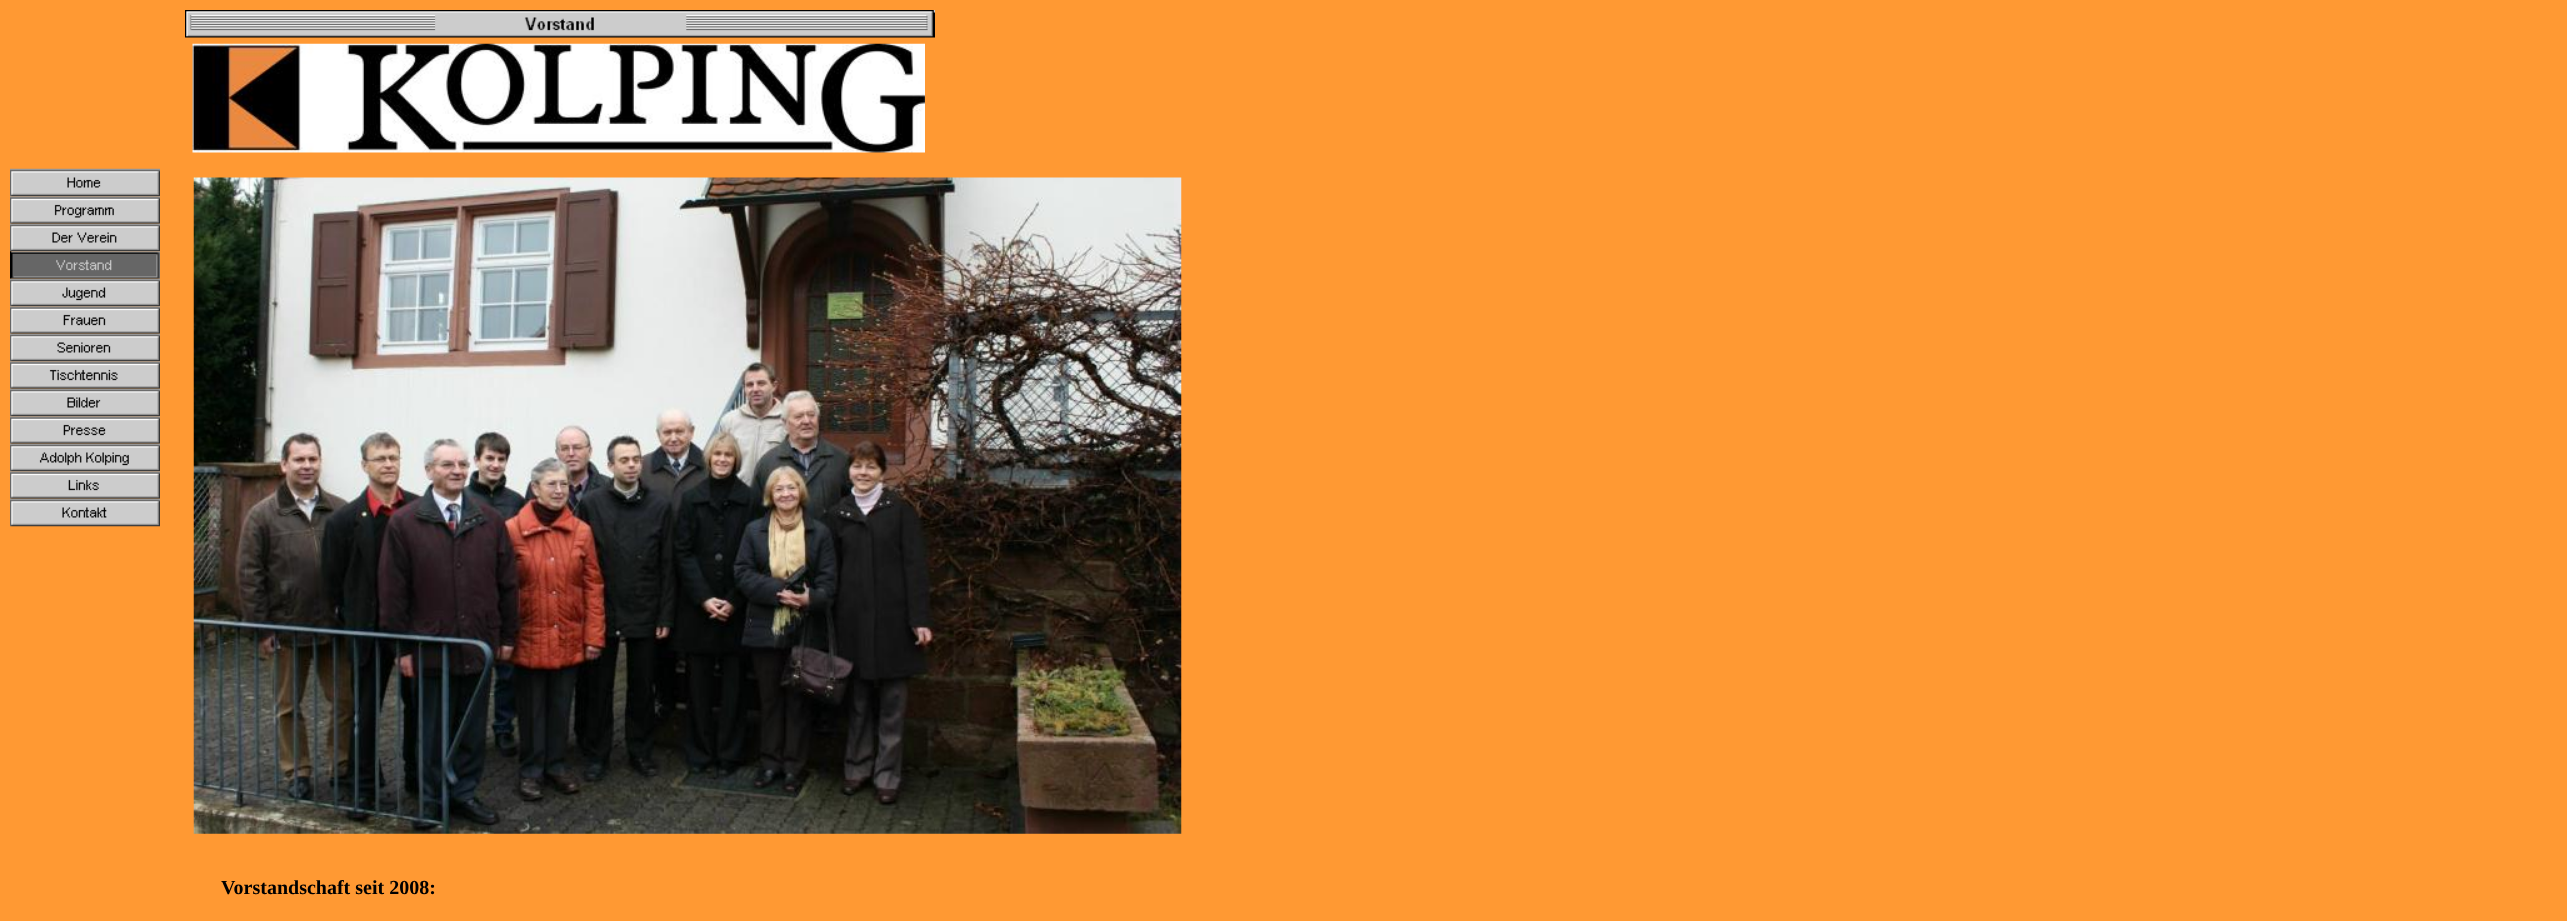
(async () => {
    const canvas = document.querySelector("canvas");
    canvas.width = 2567;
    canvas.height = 921;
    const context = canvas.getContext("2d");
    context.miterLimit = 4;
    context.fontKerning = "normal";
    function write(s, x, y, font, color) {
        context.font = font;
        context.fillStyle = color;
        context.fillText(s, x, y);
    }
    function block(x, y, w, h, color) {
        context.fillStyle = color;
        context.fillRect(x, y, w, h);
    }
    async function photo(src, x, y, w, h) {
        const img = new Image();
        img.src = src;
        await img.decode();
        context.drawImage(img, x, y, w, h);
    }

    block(0, 0, 2567, 921, "rgb(255, 153, 51)");
    await photo("media/1.png", 10, 168, 150, 29);
    await photo("media/2.png", 10, 196, 150, 28);
    await photo("media/3.png", 10, 223, 150, 29);
    await photo("media/4.png", 10, 251, 150, 28);
    await photo("media/5.png", 10, 278, 150, 29);
    await photo("media/6.png", 10, 306, 150, 28);
    await photo("media/7.png", 10, 333, 150, 29);
    await photo("media/8.png", 10, 361, 150, 28);
    await photo("media/9.png", 10, 388, 150, 29);
    await photo("media/10.png", 10, 416, 150, 28);
    await photo("media/11.png", 10, 443, 150, 29);
    await photo("media/12.png", 10, 471, 150, 28);
    await photo("media/13.png", 10, 498, 150, 29);
    await photo("media/14.png", 185, 10, 750, 28);
    await photo("media/15.png", 192, 43, 733, 110);
    await photo("media/16.png", 193, 177, 989, 657);
    write("Vorstandschaft seit 2008:", 221, 894, "bold 20px Liberation Serif", "rgb(0, 0, 0)");
})();
